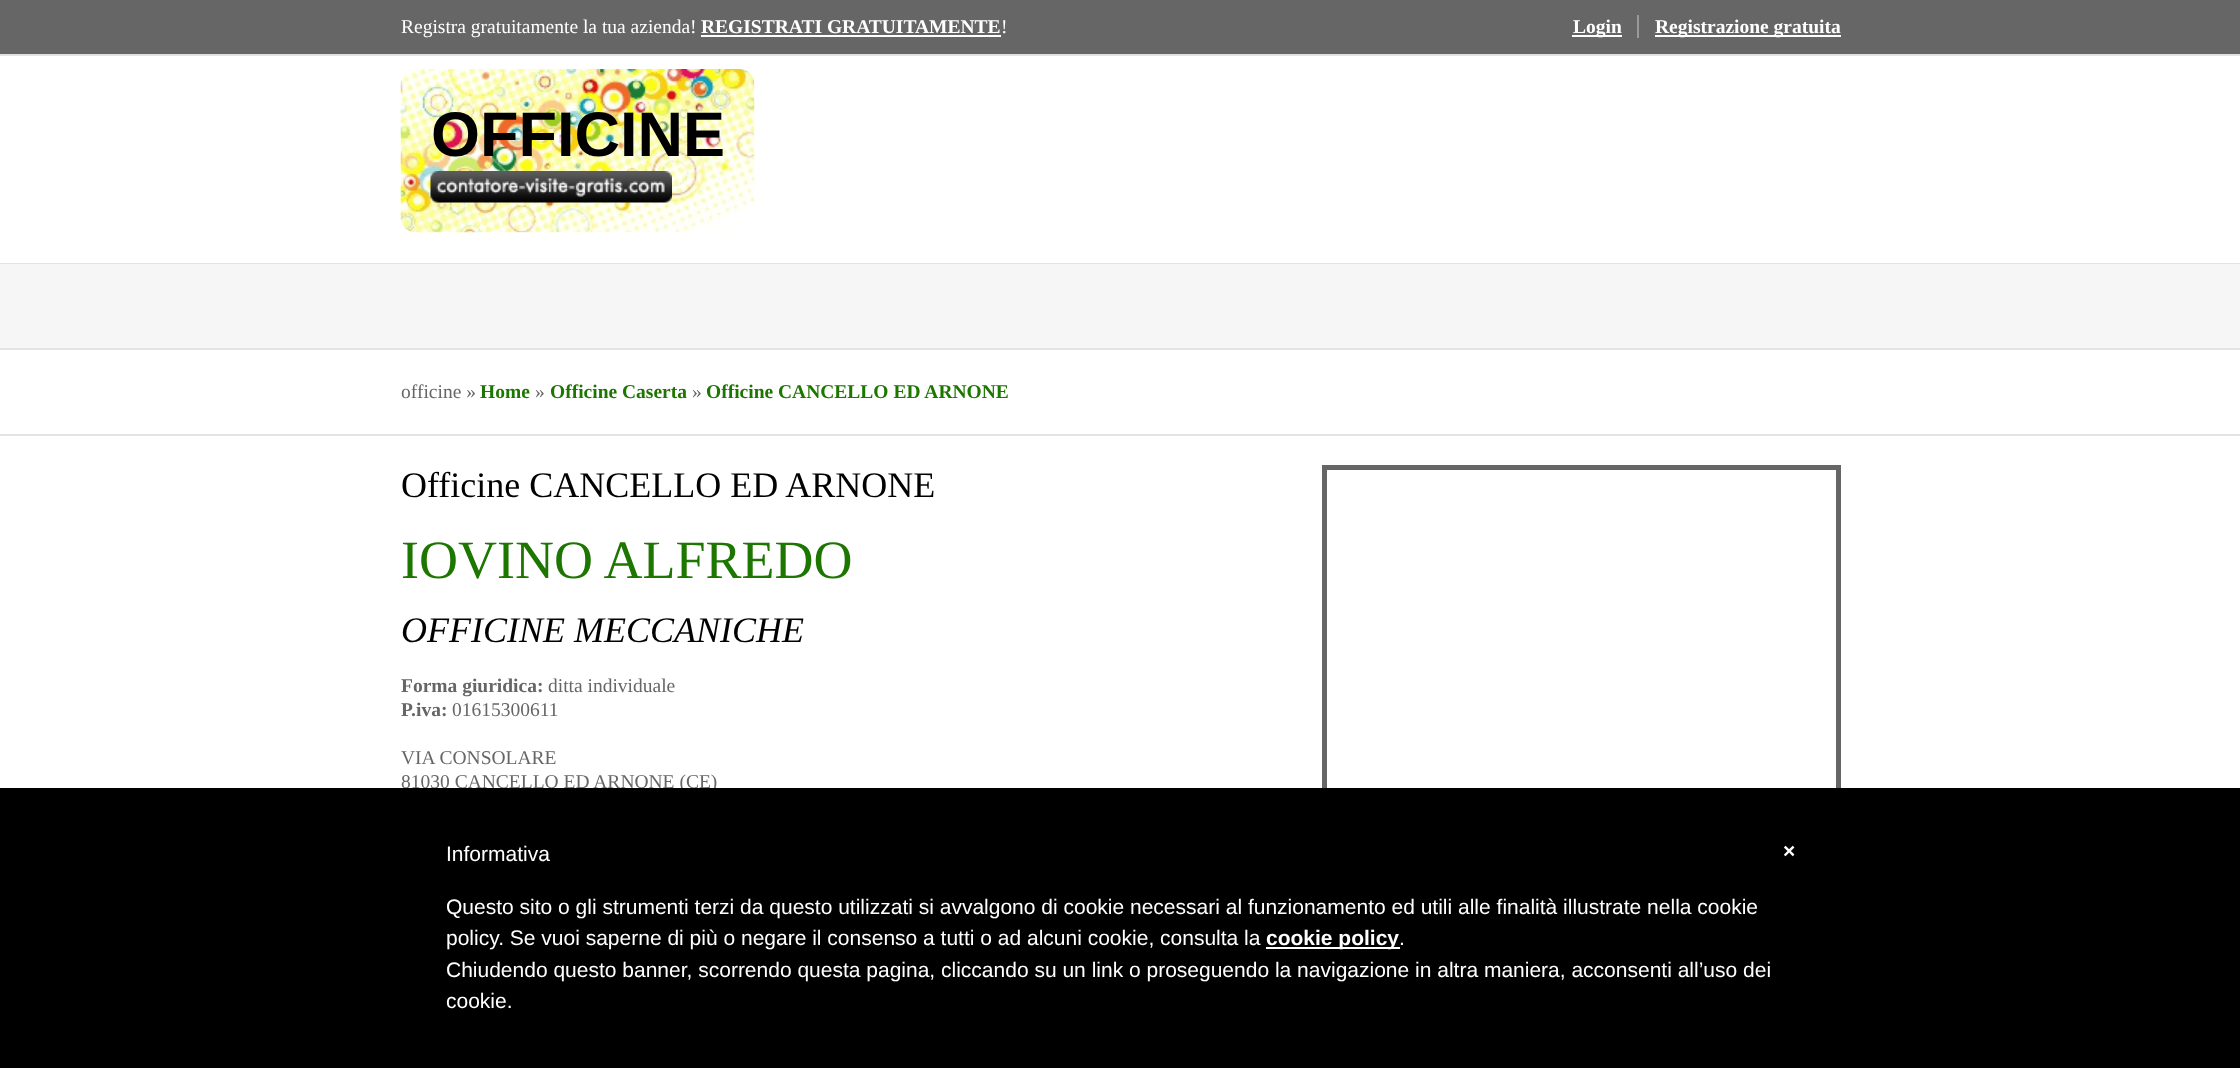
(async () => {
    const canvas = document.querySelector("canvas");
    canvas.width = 2240;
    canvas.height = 1068;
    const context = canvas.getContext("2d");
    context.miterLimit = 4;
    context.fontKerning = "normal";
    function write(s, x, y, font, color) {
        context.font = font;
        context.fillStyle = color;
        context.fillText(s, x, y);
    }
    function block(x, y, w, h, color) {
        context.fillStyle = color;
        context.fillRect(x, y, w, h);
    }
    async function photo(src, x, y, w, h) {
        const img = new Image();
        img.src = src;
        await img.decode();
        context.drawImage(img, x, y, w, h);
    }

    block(0, 0, 2240, 1068, "rgb(255, 255, 255)");
    block(0, 0, 2240, 54, "rgb(102, 102, 102)");
    block(0, 54, 2240, 2, "rgb(227, 227, 227)");
    write("Registra gratuitamente la tua azienda!", 401, 33, "19.5px Liberation Serif", "rgb(255, 255, 255)");
    write("REGISTRATI GRATUITAMENTE", 701, 33, "bold 19.5px Liberation Serif", "rgb(255, 255, 255)");
    block(701, 35, 300, 2, "rgb(255, 255, 255)");
    write("!", 1001, 33, "19.5px Liberation Serif", "rgb(255, 255, 255)");
    block(1572, 35, 50, 2, "rgb(255, 255, 255)");
    write("Login", 1573, 33, "bold 19.5px Liberation Serif", "rgb(255, 255, 255)");
    block(1637, 15, 2, 23, "rgb(153, 153, 153)");
    block(1655, 35, 186, 2, "rgb(255, 255, 255)");
    write("Registrazione gratuita", 1655, 33, "bold 19.5px Liberation Serif", "rgb(255, 255, 255)");
    block(0, 263, 2240, 1, "rgb(227, 227, 227)");
    await photo("media/1.png", 400, 69, 355, 164);
    write("OFFICINE", 431, 156, "bold 63px Liberation Sans", "rgb(0, 0, 0)");
    await photo("media/2.png", 430, 171, 242, 32);
    block(0, 264, 2240, 84, "rgb(246, 246, 246)");
    block(0, 348, 2240, 2, "rgb(227, 227, 227)");
    block(0, 434, 2240, 2, "rgb(227, 227, 227)");
    write("officine »", 401, 398, "19.5px Liberation Serif", "rgb(102, 102, 102)");
    write("Home", 480, 398, "bold 19.5px Liberation Serif", "rgb(29, 118, 0)");
    write("»", 535, 398, "19.5px Liberation Serif", "rgb(102, 102, 102)");
    write("Officine Caserta", 550, 398, "bold 19.5px Liberation Serif", "rgb(29, 118, 0)");
    write("»", 692, 398, "19.5px Liberation Serif", "rgb(102, 102, 102)");
    write("Officine CANCELLO ED ARNONE", 706, 398, "bold 19.5px Liberation Serif", "rgb(29, 118, 0)");
    write("Officine CANCELLO ED ARNONE", 401, 497, "36px Liberation Serif", "rgb(0, 0, 0)");
    context.strokeStyle = "rgb(102, 102, 102)";
    context.lineWidth = 5;
    context.strokeRect(1324.5, 467.5, 514, 430);
    write("IOVINO ALFREDO", 401, 578, "54px Liberation Serif", "rgb(29, 118, 0)");
    write("OFFICINE MECCANICHE", 401, 642, "italic 36px Liberation Serif", "rgb(0, 0, 0)");
    write("Forma giuridica:", 401, 692, "bold 19.5px Liberation Serif", "rgb(102, 102, 102)");
    write("ditta individuale", 548, 692, "19.5px Liberation Serif", "rgb(102, 102, 102)");
    write("P.iva:", 401, 716, "bold 19.5px Liberation Serif", "rgb(102, 102, 102)");
    write("01615300611", 452, 716, "19.5px Liberation Serif", "rgb(102, 102, 102)");
    write("VIA CONSOLARE", 401, 764, "19.5px Liberation Serif", "rgb(102, 102, 102)");
    write("81030 CANCELLO ED ARNONE (CE)", 401, 788, "19.5px Liberation Serif", "rgb(102, 102, 102)");
    block(0, 788, 2240, 280, "rgb(0, 0, 0)");
    write("Informativa", 446, 861, "21px Liberation Sans", "rgb(255, 255, 255)");
    write("Questo sito o gli strumenti terzi da questo utilizzati si avvalgono di cookie necessari al funzionamento ed utili alle finalità illustrate nella cookie", 446, 914, "21px Liberation Sans", "rgb(255, 255, 255)");
    write("policy. Se vuoi saperne di più o negare il consenso a tutti o ad alcuni cookie, consulta la", 446, 945, "21px Liberation Sans", "rgb(255, 255, 255)");
    block(1266, 947, 134, 2, "rgb(255, 255, 255)");
    write("cookie policy", 1266, 945, "bold 21px Liberation Sans", "rgb(255, 255, 255)");
    write(".", 1399, 945, "21px Liberation Sans", "rgb(255, 255, 255)");
    write("Chiudendo questo banner, scorrendo questa pagina, cliccando su un link o proseguendo la navigazione in altra maniera, acconsenti all’uso dei", 446, 977, "21px Liberation Sans", "rgb(255, 255, 255)");
    write("cookie.", 446, 1008, "21px Liberation Sans", "rgb(255, 255, 255)");
    write("×", 1783, 858, "bold 21px Liberation Sans", "rgb(255, 255, 255)");
})();
